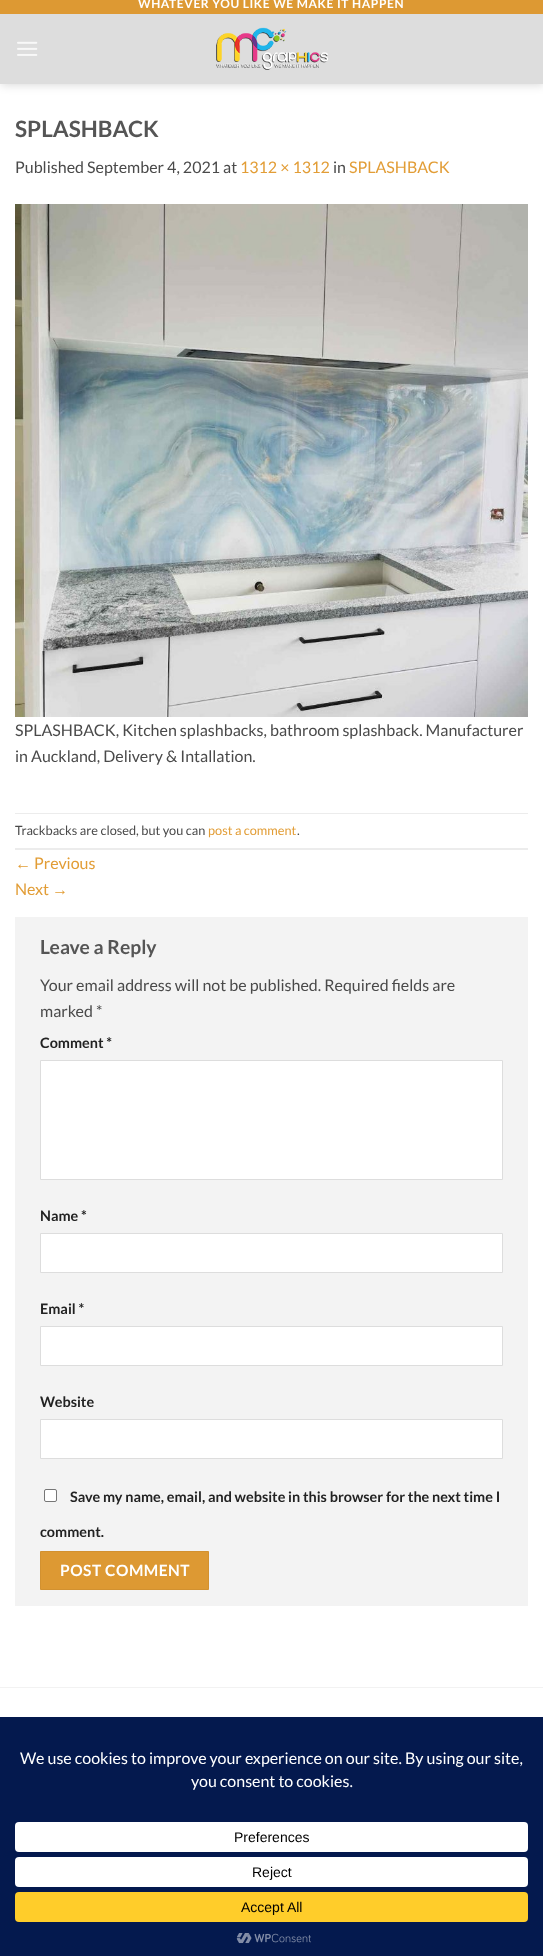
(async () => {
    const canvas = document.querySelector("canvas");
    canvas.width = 543;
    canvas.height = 1956;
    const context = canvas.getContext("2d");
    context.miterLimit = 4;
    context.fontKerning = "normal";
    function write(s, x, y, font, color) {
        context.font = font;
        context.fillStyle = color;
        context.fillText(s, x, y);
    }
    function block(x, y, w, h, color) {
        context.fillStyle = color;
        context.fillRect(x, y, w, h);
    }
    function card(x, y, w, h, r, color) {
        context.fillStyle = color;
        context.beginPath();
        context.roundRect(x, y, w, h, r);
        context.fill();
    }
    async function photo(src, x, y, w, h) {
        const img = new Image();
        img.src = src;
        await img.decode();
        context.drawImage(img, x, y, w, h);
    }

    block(0, 0, 543, 1956, "rgb(255, 255, 255)");
    context.fillStyle = "rgba(0, 0, 0, 0.15)";
    context.filter = "blur(5px)";
    context.beginPath();
    context.rect(1, -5, 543, 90);
    context.fill();
    context.filter = "none";
    block(0, 0, 543, 14, "rgb(221, 153, 51)");
    context.letterSpacing = "0.6px";
    write("WHATEVER YOU LIKE WE MAKE IT HAPPEN", 138, 8, "bold 12px Lato", "rgb(255, 255, 255)");
    block(0, 14, 543, 70, "rgb(221, 221, 221)");
    await photo("media/1.png", 17, 41, 21, 15);
    await photo("media/2.png", 216, 27, 112, 43);
    context.letterSpacing = "0px";
    write("SPLASHBACK", 15, 137, "bold 22.5px Lato", "rgb(85, 85, 85)");
    write("Published September 4, 2021 at", 15, 173, "16px Lato", "rgb(74, 74, 74)");
    write("1312 × 1312", 240, 173, "16px Lato", "rgb(226, 157, 54)");
    write("in", 333, 173, "16px Lato", "rgb(74, 74, 74)");
    write("SPLASHBACK", 349, 173, "16px Lato", "rgb(226, 157, 54)");
    await photo("media/3.png", 15, 204, 513, 513);
    write("SPLASHBACK, Kitchen splashbacks, bathroom splashback. Manufacturer", 15, 736, "16px Lato", "rgb(74, 74, 74)");
    write("in Auckland, Delivery & Intallation.", 15, 762, "16px Lato", "rgb(74, 74, 74)");
    block(15, 813, 513, 1, "rgb(236, 236, 236)");
    block(15, 848, 513, 2, "rgb(236, 236, 236)");
    write("Trackbacks are closed, but you can", 15, 835, "12.75px Lato", "rgb(74, 74, 74)");
    write("post a comment", 208, 835, "12.75px Lato", "rgb(226, 157, 54)");
    write(".", 297, 835, "12.75px Lato", "rgb(74, 74, 74)");
    write("←", 15, 869, "16px Liberation Sans", "rgb(226, 157, 54)");
    write("Previous", 34, 869, "16px Lato", "rgb(226, 157, 54)");
    write("Next", 15, 895, "16px Lato", "rgb(226, 157, 54)");
    write("→", 52, 895, "16px Liberation Sans", "rgb(226, 157, 54)");
    block(15, 917, 513, 689, "rgb(243, 243, 243)");
    write("Leave a Reply", 40, 954, "bold 19.25px Lato", "rgb(85, 85, 85)");
    write("Your email address will not be published. Required fields are", 40, 991, "16px Lato", "rgb(74, 74, 74)");
    write("marked *", 40, 1017, "16px Lato", "rgb(74, 74, 74)");
    write("Comment *", 40, 1048, "bold 14.4px Lato", "rgb(34, 34, 34)");
    context.fillStyle = "rgb(255, 255, 255)";
    context.beginPath();
    context.rect(40.5, 1060.5, 462, 119);
    context.fill();
    context.strokeStyle = "rgb(221, 221, 221)";
    context.stroke();
    write("Name *", 40, 1221, "bold 14.4px Lato", "rgb(34, 34, 34)");
    context.fillStyle = "rgb(255, 255, 255)";
    context.beginPath();
    context.rect(40.5, 1233.5, 462, 39);
    context.fill();
    context.stroke();
    write("Email *", 40, 1314, "bold 14.4px Lato", "rgb(34, 34, 34)");
    context.fillStyle = "rgb(255, 255, 255)";
    context.beginPath();
    context.rect(40.5, 1326.5, 462, 39);
    context.fill();
    context.stroke();
    write("Website", 40, 1407, "bold 14.4px Lato", "rgb(34, 34, 34)");
    context.fillStyle = "rgb(255, 255, 255)";
    context.beginPath();
    context.rect(40.5, 1419.5, 462, 39);
    context.fill();
    context.stroke();
    context.beginPath();
    context.roundRect(44.5, 1489.5, 12, 12, 1.5);
    context.fill();
    context.strokeStyle = "rgb(118, 118, 118)";
    context.stroke();
    write("Save my name, email, and website in this browser for the next time I", 70, 1502, "bold 14.4px Lato", "rgb(34, 34, 34)");
    write("comment.", 40, 1537, "bold 14.4px Lato", "rgb(34, 34, 34)");
    context.fillStyle = "rgb(221, 153, 51)";
    context.beginPath();
    context.rect(40.5, 1551.5, 168, 38);
    context.fill();
    context.strokeStyle = "rgb(210, 145, 48)";
    context.stroke();
    context.letterSpacing = "0.5px";
    write("POST COMMENT", 60, 1576, "bold 15.5px Lato", "rgb(255, 255, 255)");
    block(0, 1687, 543, 1, "rgb(242, 242, 242)");
    block(0, 1717, 543, 239, "rgb(4, 25, 78)");
    context.letterSpacing = "0px";
    write("We use cookies to improve your experience on our site. By using our site,", 20, 1764, "16px Lato", "rgb(255, 255, 255)");
    write("you consent to cookies.", 191, 1787, "16px Lato", "rgb(255, 255, 255)");
    card(15, 1822, 513, 30, 4, "rgb(255, 255, 255)");
    write("Preferences", 234, 1842, "14px Liberation Sans", "rgb(0, 0, 0)");
    card(15, 1857, 513, 30, 4, "rgb(255, 255, 255)");
    write("Reject", 252, 1877, "14px Liberation Sans", "rgb(0, 0, 0)");
    card(15, 1892, 513, 30, 4, "rgb(255, 205, 42)");
    write("Accept All", 241, 1912, "14px Liberation Sans", "rgb(0, 0, 0)");
    await photo("media/4.png", 236, 1933, 75, 11);
})();
